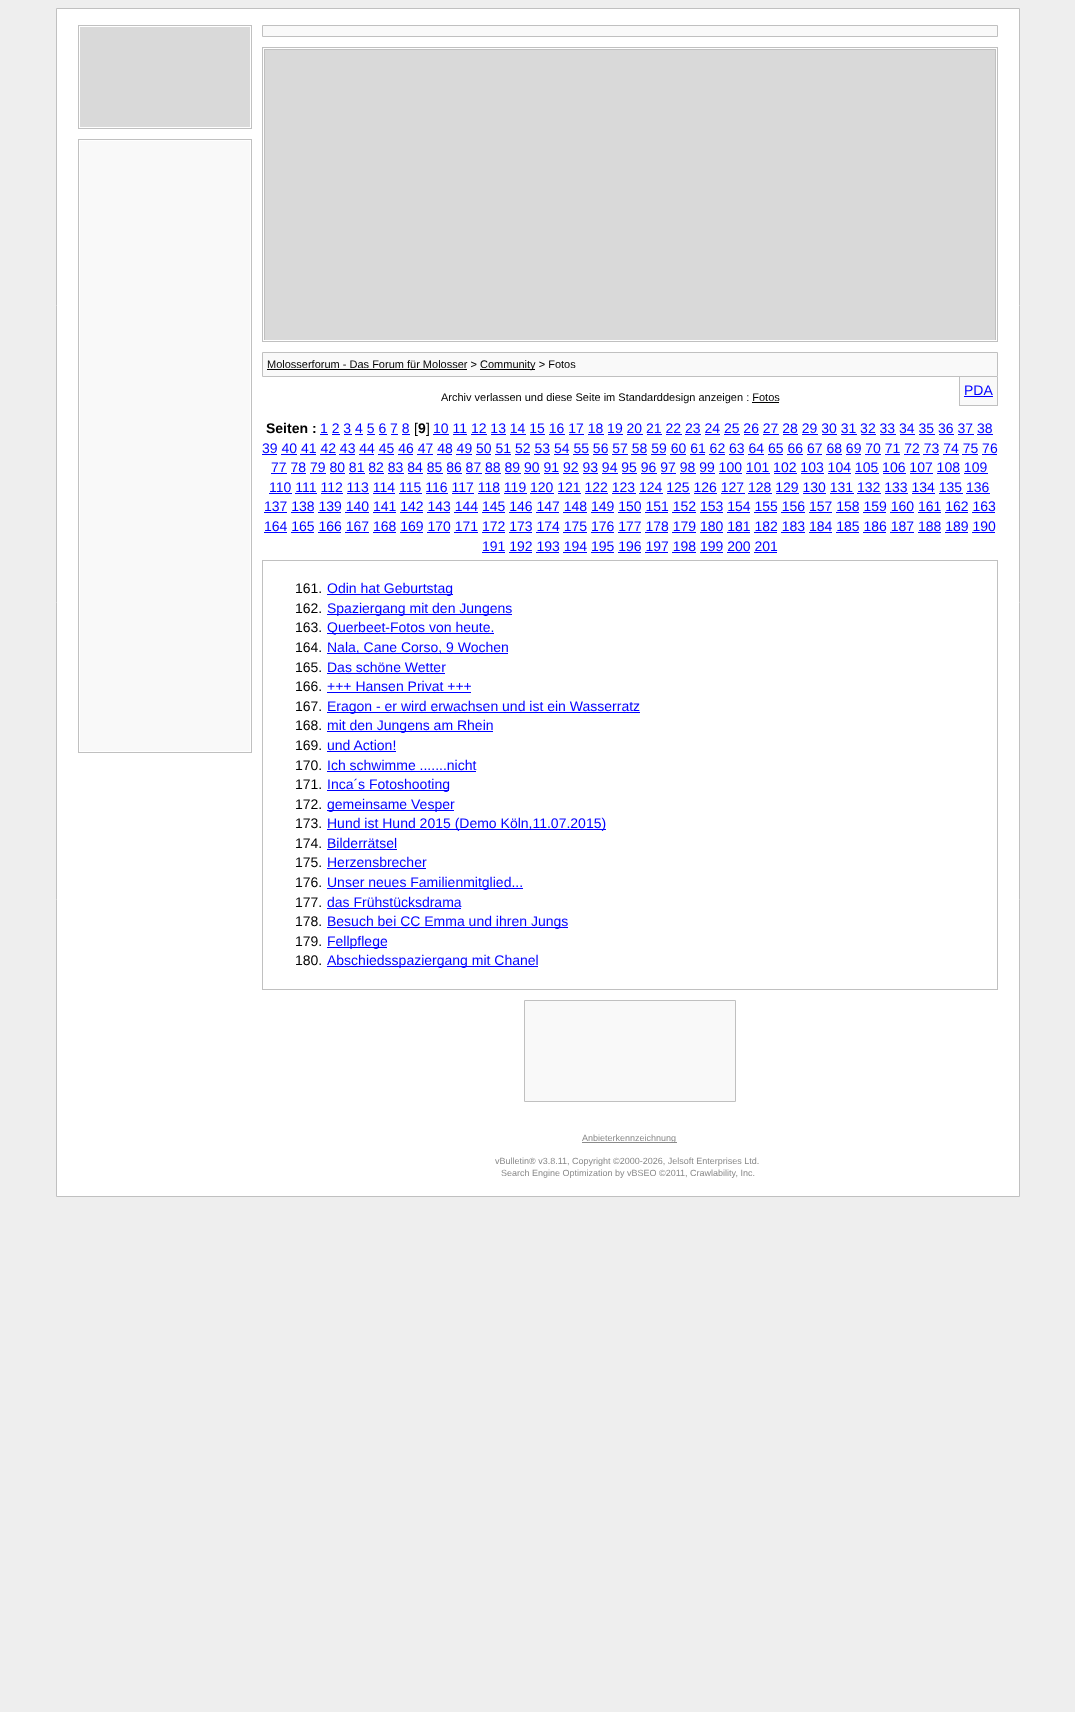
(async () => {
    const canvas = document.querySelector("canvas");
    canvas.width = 1075;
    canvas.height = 1712;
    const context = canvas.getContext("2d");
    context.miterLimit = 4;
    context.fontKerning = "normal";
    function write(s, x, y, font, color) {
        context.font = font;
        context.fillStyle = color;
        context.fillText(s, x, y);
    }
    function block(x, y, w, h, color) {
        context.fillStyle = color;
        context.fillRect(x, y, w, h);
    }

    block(0, 0, 1075, 1712, "rgb(238, 238, 238)");
    context.fillStyle = "rgb(255, 255, 255)";
    context.beginPath();
    context.rect(56.5, 8.5, 963, 1188);
    context.fill();
    context.strokeStyle = "rgb(192, 192, 192)";
    context.stroke();
    context.strokeRect(78.5, 25.5, 173, 103);
    block(80, 27, 170, 100, "rgb(217, 217, 217)");
    context.strokeRect(78.5, 139.5, 173, 613);
    block(80, 141, 170, 610, "rgb(249, 249, 249)");
    context.beginPath();
    context.rect(262.5, 25.5, 735, 11);
    context.fill();
    context.stroke();
    context.strokeRect(262.5, 47.5, 735, 294);
    block(265, 50, 730, 290, "rgb(217, 217, 217)");
    block(264, 49, 732, 1, "rgb(192, 192, 192)");
    block(995, 49, 1, 291, "rgb(192, 192, 192)");
    block(264, 49, 1, 291, "rgb(192, 192, 192)");
    context.fillStyle = "rgb(249, 249, 249)";
    context.beginPath();
    context.rect(262.5, 352.5, 735, 24);
    context.fill();
    context.stroke();
    write("Molosserforum - Das Forum für Molosser >", 267, 368, "11px Liberation Sans", "rgb(0, 0, 0)");
    block(267, 369, 200, 1, "rgb(0, 0, 0)");
    block(480, 369, 55, 1, "rgb(0, 0, 0)");
    write("Community > Fotos", 480, 368, "11px Liberation Sans", "rgb(0, 0, 0)");
    block(960, 377, 37, 28, "rgb(249, 249, 249)");
    block(997, 377, 1, 29, "rgb(192, 192, 192)");
    block(959, 405, 39, 1, "rgb(192, 192, 192)");
    block(959, 377, 1, 29, "rgb(192, 192, 192)");
    write("PDA", 964, 395, "14px Liberation Sans", "rgb(0, 0, 255)");
    block(964, 396, 29, 1, "rgb(0, 0, 255)");
    write("Archiv verlassen und diese Seite im Standarddesign anzeigen : Fotos", 441, 401, "11px Liberation Sans", "rgb(0, 0, 0)");
    block(752, 402, 27, 1, "rgb(0, 0, 0)");
    write("Seiten :", 266, 433, "bold 14px Liberation Sans", "rgb(0, 0, 0)");
    write("1 2 3 4 5 6 7 8", 320, 433, "14px Liberation Sans", "rgb(0, 0, 255)");
    block(320, 434, 8, 1, "rgb(0, 0, 255)");
    write("[", 414, 433, "14px Liberation Sans", "rgb(0, 0, 0)");
    write("9", 418, 433, "bold 14px Liberation Sans", "rgb(0, 0, 0)");
    write("]", 426, 433, "14px Liberation Sans", "rgb(0, 0, 0)");
    write("10 11 12 13 14 15 16 17 18 19 20 21 22 23 24 25 26 27 28 29 30 31 32 33 34 35 36 37 38", 433, 433, "14px Liberation Sans", "rgb(0, 0, 255)");
    block(433, 434, 16, 1, "rgb(0, 0, 255)");
    block(332, 434, 8, 1, "rgb(0, 0, 255)");
    block(344, 434, 8, 1, "rgb(0, 0, 255)");
    block(355, 434, 8, 1, "rgb(0, 0, 255)");
    block(367, 434, 8, 1, "rgb(0, 0, 255)");
    block(379, 434, 8, 1, "rgb(0, 0, 255)");
    block(391, 434, 7, 1, "rgb(0, 0, 255)");
    block(402, 434, 8, 1, "rgb(0, 0, 255)");
    block(453, 434, 14, 1, "rgb(0, 0, 255)");
    block(471, 434, 16, 1, "rgb(0, 0, 255)");
    block(491, 434, 15, 1, "rgb(0, 0, 255)");
    block(510, 434, 16, 1, "rgb(0, 0, 255)");
    block(530, 434, 15, 1, "rgb(0, 0, 255)");
    block(549, 434, 16, 1, "rgb(0, 0, 255)");
    block(569, 434, 15, 1, "rgb(0, 0, 255)");
    block(588, 434, 16, 1, "rgb(0, 0, 255)");
    block(608, 434, 15, 1, "rgb(0, 0, 255)");
    block(627, 434, 16, 1, "rgb(0, 0, 255)");
    block(647, 434, 15, 1, "rgb(0, 0, 255)");
    block(666, 434, 16, 1, "rgb(0, 0, 255)");
    block(685, 434, 16, 1, "rgb(0, 0, 255)");
    block(705, 434, 15, 1, "rgb(0, 0, 255)");
    block(724, 434, 16, 1, "rgb(0, 0, 255)");
    block(744, 434, 15, 1, "rgb(0, 0, 255)");
    block(763, 434, 16, 1, "rgb(0, 0, 255)");
    block(783, 434, 15, 1, "rgb(0, 0, 255)");
    block(802, 434, 16, 1, "rgb(0, 0, 255)");
    block(822, 434, 15, 1, "rgb(0, 0, 255)");
    block(841, 434, 16, 1, "rgb(0, 0, 255)");
    block(861, 434, 15, 1, "rgb(0, 0, 255)");
    block(880, 434, 16, 1, "rgb(0, 0, 255)");
    block(900, 434, 15, 1, "rgb(0, 0, 255)");
    block(919, 434, 16, 1, "rgb(0, 0, 255)");
    block(939, 434, 15, 1, "rgb(0, 0, 255)");
    block(958, 434, 16, 1, "rgb(0, 0, 255)");
    block(977, 434, 16, 1, "rgb(0, 0, 255)");
    write("39 40 41 42 43 44 45 46 47 48 49 50 51 52 53 54 55 56 57 58 59 60 61 62 63 64 65 66 67 68 69 70 71 72 73 74 75 76", 262, 453, "14px Liberation Sans", "rgb(0, 0, 255)");
    block(262, 454, 15, 1, "rgb(0, 0, 255)");
    block(281, 454, 16, 1, "rgb(0, 0, 255)");
    block(300, 454, 16, 1, "rgb(0, 0, 255)");
    block(320, 454, 16, 1, "rgb(0, 0, 255)");
    block(339, 454, 16, 1, "rgb(0, 0, 255)");
    block(359, 454, 15, 1, "rgb(0, 0, 255)");
    block(378, 454, 16, 1, "rgb(0, 0, 255)");
    block(398, 454, 15, 1, "rgb(0, 0, 255)");
    block(417, 454, 16, 1, "rgb(0, 0, 255)");
    block(437, 454, 15, 1, "rgb(0, 0, 255)");
    block(456, 454, 16, 1, "rgb(0, 0, 255)");
    block(476, 454, 15, 1, "rgb(0, 0, 255)");
    block(495, 454, 16, 1, "rgb(0, 0, 255)");
    block(515, 454, 15, 1, "rgb(0, 0, 255)");
    block(534, 454, 16, 1, "rgb(0, 0, 255)");
    block(554, 454, 15, 1, "rgb(0, 0, 255)");
    block(573, 454, 16, 1, "rgb(0, 0, 255)");
    block(593, 454, 15, 1, "rgb(0, 0, 255)");
    block(612, 454, 16, 1, "rgb(0, 0, 255)");
    block(631, 454, 16, 1, "rgb(0, 0, 255)");
    block(651, 454, 15, 1, "rgb(0, 0, 255)");
    block(670, 454, 16, 1, "rgb(0, 0, 255)");
    block(690, 454, 15, 1, "rgb(0, 0, 255)");
    block(709, 454, 16, 1, "rgb(0, 0, 255)");
    block(729, 454, 15, 1, "rgb(0, 0, 255)");
    block(748, 454, 16, 1, "rgb(0, 0, 255)");
    block(768, 454, 15, 1, "rgb(0, 0, 255)");
    block(787, 454, 16, 1, "rgb(0, 0, 255)");
    block(807, 454, 15, 1, "rgb(0, 0, 255)");
    block(826, 454, 16, 1, "rgb(0, 0, 255)");
    block(846, 454, 15, 1, "rgb(0, 0, 255)");
    block(865, 454, 16, 1, "rgb(0, 0, 255)");
    block(885, 454, 15, 1, "rgb(0, 0, 255)");
    block(904, 454, 16, 1, "rgb(0, 0, 255)");
    block(923, 454, 16, 1, "rgb(0, 0, 255)");
    block(943, 454, 16, 1, "rgb(0, 0, 255)");
    block(962, 454, 16, 1, "rgb(0, 0, 255)");
    block(982, 454, 15, 1, "rgb(0, 0, 255)");
    write("77 78 79 80 81 82 83 84 85 86 87 88 89 90 91 92 93 94 95 96 97 98 99 100 101 102 103 104 105 106 107 108 109", 271, 472, "14px Liberation Sans", "rgb(0, 0, 255)");
    block(271, 473, 16, 1, "rgb(0, 0, 255)");
    block(291, 473, 15, 1, "rgb(0, 0, 255)");
    block(310, 473, 16, 1, "rgb(0, 0, 255)");
    block(330, 473, 15, 1, "rgb(0, 0, 255)");
    block(349, 473, 16, 1, "rgb(0, 0, 255)");
    block(369, 473, 15, 1, "rgb(0, 0, 255)");
    block(388, 473, 16, 1, "rgb(0, 0, 255)");
    block(408, 473, 15, 1, "rgb(0, 0, 255)");
    block(427, 473, 16, 1, "rgb(0, 0, 255)");
    block(447, 473, 15, 1, "rgb(0, 0, 255)");
    block(466, 473, 16, 1, "rgb(0, 0, 255)");
    block(485, 473, 16, 1, "rgb(0, 0, 255)");
    block(505, 473, 16, 1, "rgb(0, 0, 255)");
    block(524, 473, 16, 1, "rgb(0, 0, 255)");
    block(544, 473, 15, 1, "rgb(0, 0, 255)");
    block(563, 473, 16, 1, "rgb(0, 0, 255)");
    block(583, 473, 15, 1, "rgb(0, 0, 255)");
    block(602, 473, 16, 1, "rgb(0, 0, 255)");
    block(622, 473, 15, 1, "rgb(0, 0, 255)");
    block(641, 473, 16, 1, "rgb(0, 0, 255)");
    block(661, 473, 15, 1, "rgb(0, 0, 255)");
    block(680, 473, 16, 1, "rgb(0, 0, 255)");
    block(700, 473, 15, 1, "rgb(0, 0, 255)");
    block(719, 473, 23, 1, "rgb(0, 0, 255)");
    block(746, 473, 24, 1, "rgb(0, 0, 255)");
    block(774, 473, 23, 1, "rgb(0, 0, 255)");
    block(801, 473, 23, 1, "rgb(0, 0, 255)");
    block(828, 473, 23, 1, "rgb(0, 0, 255)");
    block(855, 473, 24, 1, "rgb(0, 0, 255)");
    block(883, 473, 23, 1, "rgb(0, 0, 255)");
    block(910, 473, 23, 1, "rgb(0, 0, 255)");
    block(937, 473, 23, 1, "rgb(0, 0, 255)");
    block(964, 473, 24, 1, "rgb(0, 0, 255)");
    write("110 111 112 113 114 115 116 117 118 119 120 121 122 123 124 125 126 127 128 129 130 131 132 133 134 135 136", 269, 492, "14px Liberation Sans", "rgb(0, 0, 255)");
    block(269, 493, 23, 1, "rgb(0, 0, 255)");
    block(295, 493, 22, 1, "rgb(0, 0, 255)");
    block(321, 493, 22, 1, "rgb(0, 0, 255)");
    block(347, 493, 22, 1, "rgb(0, 0, 255)");
    block(373, 493, 22, 1, "rgb(0, 0, 255)");
    block(399, 493, 23, 1, "rgb(0, 0, 255)");
    block(426, 493, 22, 1, "rgb(0, 0, 255)");
    block(452, 493, 22, 1, "rgb(0, 0, 255)");
    block(478, 493, 22, 1, "rgb(0, 0, 255)");
    block(504, 493, 23, 1, "rgb(0, 0, 255)");
    block(530, 493, 24, 1, "rgb(0, 0, 255)");
    block(558, 493, 23, 1, "rgb(0, 0, 255)");
    block(585, 493, 23, 1, "rgb(0, 0, 255)");
    block(612, 493, 24, 1, "rgb(0, 0, 255)");
    block(639, 493, 24, 1, "rgb(0, 0, 255)");
    block(667, 493, 23, 1, "rgb(0, 0, 255)");
    block(694, 493, 23, 1, "rgb(0, 0, 255)");
    block(721, 493, 24, 1, "rgb(0, 0, 255)");
    block(748, 493, 24, 1, "rgb(0, 0, 255)");
    block(776, 493, 23, 1, "rgb(0, 0, 255)");
    block(803, 493, 23, 1, "rgb(0, 0, 255)");
    block(830, 493, 24, 1, "rgb(0, 0, 255)");
    block(857, 493, 24, 1, "rgb(0, 0, 255)");
    block(885, 493, 23, 1, "rgb(0, 0, 255)");
    block(912, 493, 23, 1, "rgb(0, 0, 255)");
    block(939, 493, 24, 1, "rgb(0, 0, 255)");
    block(966, 493, 24, 1, "rgb(0, 0, 255)");
    write("137 138 139 140 141 142 143 144 145 146 147 148 149 150 151 152 153 154 155 156 157 158 159 160 161 162 163", 264, 511, "14px Liberation Sans", "rgb(0, 0, 255)");
    block(264, 512, 23, 1, "rgb(0, 0, 255)");
    block(291, 512, 23, 1, "rgb(0, 0, 255)");
    block(318, 512, 23, 1, "rgb(0, 0, 255)");
    block(345, 512, 24, 1, "rgb(0, 0, 255)");
    block(373, 512, 23, 1, "rgb(0, 0, 255)");
    block(400, 512, 23, 1, "rgb(0, 0, 255)");
    block(427, 512, 23, 1, "rgb(0, 0, 255)");
    block(454, 512, 24, 1, "rgb(0, 0, 255)");
    block(482, 512, 23, 1, "rgb(0, 0, 255)");
    block(509, 512, 23, 1, "rgb(0, 0, 255)");
    block(536, 512, 23, 1, "rgb(0, 0, 255)");
    block(563, 512, 24, 1, "rgb(0, 0, 255)");
    block(591, 512, 23, 1, "rgb(0, 0, 255)");
    block(618, 512, 23, 1, "rgb(0, 0, 255)");
    block(645, 512, 23, 1, "rgb(0, 0, 255)");
    block(672, 512, 24, 1, "rgb(0, 0, 255)");
    block(700, 512, 23, 1, "rgb(0, 0, 255)");
    block(727, 512, 23, 1, "rgb(0, 0, 255)");
    block(754, 512, 23, 1, "rgb(0, 0, 255)");
    block(781, 512, 24, 1, "rgb(0, 0, 255)");
    block(809, 512, 23, 1, "rgb(0, 0, 255)");
    block(836, 512, 23, 1, "rgb(0, 0, 255)");
    block(863, 512, 23, 1, "rgb(0, 0, 255)");
    block(890, 512, 24, 1, "rgb(0, 0, 255)");
    block(918, 512, 23, 1, "rgb(0, 0, 255)");
    block(945, 512, 23, 1, "rgb(0, 0, 255)");
    block(972, 512, 23, 1, "rgb(0, 0, 255)");
    write("164 165 166 167 168 169 170 171 172 173 174 175 176 177 178 179 180 181 182 183 184 185 186 187 188 189 190", 264, 531, "14px Liberation Sans", "rgb(0, 0, 255)");
    block(264, 532, 23, 1, "rgb(0, 0, 255)");
    block(291, 532, 23, 1, "rgb(0, 0, 255)");
    block(318, 532, 23, 1, "rgb(0, 0, 255)");
    block(345, 532, 24, 1, "rgb(0, 0, 255)");
    block(373, 532, 23, 1, "rgb(0, 0, 255)");
    block(400, 532, 23, 1, "rgb(0, 0, 255)");
    block(427, 532, 23, 1, "rgb(0, 0, 255)");
    block(454, 532, 24, 1, "rgb(0, 0, 255)");
    block(482, 532, 23, 1, "rgb(0, 0, 255)");
    block(509, 532, 23, 1, "rgb(0, 0, 255)");
    block(536, 532, 23, 1, "rgb(0, 0, 255)");
    block(563, 532, 24, 1, "rgb(0, 0, 255)");
    block(591, 532, 23, 1, "rgb(0, 0, 255)");
    block(618, 532, 23, 1, "rgb(0, 0, 255)");
    block(645, 532, 23, 1, "rgb(0, 0, 255)");
    block(672, 532, 24, 1, "rgb(0, 0, 255)");
    block(700, 532, 23, 1, "rgb(0, 0, 255)");
    block(727, 532, 23, 1, "rgb(0, 0, 255)");
    block(754, 532, 23, 1, "rgb(0, 0, 255)");
    block(781, 532, 24, 1, "rgb(0, 0, 255)");
    block(809, 532, 23, 1, "rgb(0, 0, 255)");
    block(836, 532, 23, 1, "rgb(0, 0, 255)");
    block(863, 532, 23, 1, "rgb(0, 0, 255)");
    block(890, 532, 24, 1, "rgb(0, 0, 255)");
    block(918, 532, 23, 1, "rgb(0, 0, 255)");
    block(945, 532, 23, 1, "rgb(0, 0, 255)");
    block(972, 532, 23, 1, "rgb(0, 0, 255)");
    write("191 192 193 194 195 196 197 198 199 200 201", 482, 551, "14px Liberation Sans", "rgb(0, 0, 255)");
    block(482, 552, 23, 1, "rgb(0, 0, 255)");
    block(509, 552, 23, 1, "rgb(0, 0, 255)");
    block(536, 552, 23, 1, "rgb(0, 0, 255)");
    block(563, 552, 24, 1, "rgb(0, 0, 255)");
    block(591, 552, 23, 1, "rgb(0, 0, 255)");
    block(618, 552, 23, 1, "rgb(0, 0, 255)");
    block(645, 552, 23, 1, "rgb(0, 0, 255)");
    block(672, 552, 24, 1, "rgb(0, 0, 255)");
    block(700, 552, 23, 1, "rgb(0, 0, 255)");
    block(727, 552, 23, 1, "rgb(0, 0, 255)");
    block(754, 552, 23, 1, "rgb(0, 0, 255)");
    context.strokeRect(262.5, 560.5, 735, 429);
    write("161.", 295, 593, "14px Liberation Sans", "rgb(0, 0, 0)");
    block(327, 594, 126, 1, "rgb(0, 0, 255)");
    write("Odin hat Geburtstag", 327, 593, "14px Liberation Sans", "rgb(0, 0, 255)");
    write("162.", 295, 613, "14px Liberation Sans", "rgb(0, 0, 0)");
    block(327, 614, 185, 1, "rgb(0, 0, 255)");
    write("Spaziergang mit den Jungens", 327, 613, "14px Liberation Sans", "rgb(0, 0, 255)");
    write("163.", 295, 632, "14px Liberation Sans", "rgb(0, 0, 0)");
    block(327, 633, 167, 1, "rgb(0, 0, 255)");
    write("Querbeet-Fotos von heute.", 327, 632, "14px Liberation Sans", "rgb(0, 0, 255)");
    write("164.", 295, 652, "14px Liberation Sans", "rgb(0, 0, 0)");
    block(327, 653, 181, 1, "rgb(0, 0, 255)");
    write("Nala, Cane Corso, 9 Wochen", 327, 652, "14px Liberation Sans", "rgb(0, 0, 255)");
    write("165.", 295, 672, "14px Liberation Sans", "rgb(0, 0, 0)");
    write("Das schöne Wetter", 327, 672, "14px Liberation Sans", "rgb(0, 0, 255)");
    block(327, 673, 118, 1, "rgb(0, 0, 255)");
    write("166.", 295, 691, "14px Liberation Sans", "rgb(0, 0, 0)");
    write("+++ Hansen Privat +++", 327, 691, "14px Liberation Sans", "rgb(0, 0, 255)");
    block(327, 692, 144, 1, "rgb(0, 0, 255)");
    write("167.", 295, 711, "14px Liberation Sans", "rgb(0, 0, 0)");
    block(327, 712, 313, 1, "rgb(0, 0, 255)");
    write("Eragon - er wird erwachsen und ist ein Wasserratz", 327, 711, "14px Liberation Sans", "rgb(0, 0, 255)");
    write("168.", 295, 730, "14px Liberation Sans", "rgb(0, 0, 0)");
    block(327, 731, 166, 1, "rgb(0, 0, 255)");
    write("mit den Jungens am Rhein", 327, 730, "14px Liberation Sans", "rgb(0, 0, 255)");
    write("169.", 295, 750, "14px Liberation Sans", "rgb(0, 0, 0)");
    write("und Action!", 327, 750, "14px Liberation Sans", "rgb(0, 0, 255)");
    block(327, 751, 69, 1, "rgb(0, 0, 255)");
    write("170.", 295, 770, "14px Liberation Sans", "rgb(0, 0, 0)");
    write("Ich schwimme .......nicht", 327, 770, "14px Liberation Sans", "rgb(0, 0, 255)");
    block(327, 771, 149, 1, "rgb(0, 0, 255)");
    write("171.", 295, 789, "14px Liberation Sans", "rgb(0, 0, 0)");
    block(327, 790, 122, 1, "rgb(0, 0, 255)");
    write("Inca´s Fotoshooting", 327, 789, "14px Liberation Sans", "rgb(0, 0, 255)");
    write("172.", 295, 809, "14px Liberation Sans", "rgb(0, 0, 0)");
    block(327, 810, 127, 1, "rgb(0, 0, 255)");
    write("gemeinsame Vesper", 327, 809, "14px Liberation Sans", "rgb(0, 0, 255)");
    write("173.", 295, 828, "14px Liberation Sans", "rgb(0, 0, 0)");
    block(327, 829, 279, 1, "rgb(0, 0, 255)");
    write("Hund ist Hund 2015 (Demo Köln,11.07.2015)", 327, 828, "14px Liberation Sans", "rgb(0, 0, 255)");
    write("174.", 295, 848, "14px Liberation Sans", "rgb(0, 0, 0)");
    write("Bilderrätsel", 327, 848, "14px Liberation Sans", "rgb(0, 0, 255)");
    block(327, 849, 70, 1, "rgb(0, 0, 255)");
    write("175.", 295, 867, "14px Liberation Sans", "rgb(0, 0, 0)");
    write("Herzensbrecher", 327, 867, "14px Liberation Sans", "rgb(0, 0, 255)");
    block(327, 868, 99, 1, "rgb(0, 0, 255)");
    write("176.", 295, 887, "14px Liberation Sans", "rgb(0, 0, 0)");
    block(327, 888, 196, 1, "rgb(0, 0, 255)");
    write("Unser neues Familienmitglied...", 327, 887, "14px Liberation Sans", "rgb(0, 0, 255)");
    write("177.", 295, 907, "14px Liberation Sans", "rgb(0, 0, 0)");
    write("das Frühstücksdrama", 327, 907, "14px Liberation Sans", "rgb(0, 0, 255)");
    block(327, 908, 134, 1, "rgb(0, 0, 255)");
    write("178.", 295, 926, "14px Liberation Sans", "rgb(0, 0, 0)");
    block(327, 927, 241, 1, "rgb(0, 0, 255)");
    write("Besuch bei CC Emma und ihren Jungs", 327, 926, "14px Liberation Sans", "rgb(0, 0, 255)");
    write("179.", 295, 946, "14px Liberation Sans", "rgb(0, 0, 0)");
    block(327, 947, 60, 1, "rgb(0, 0, 255)");
    write("Fellpflege", 327, 946, "14px Liberation Sans", "rgb(0, 0, 255)");
    write("180.", 295, 965, "14px Liberation Sans", "rgb(0, 0, 0)");
    block(327, 966, 211, 1, "rgb(0, 0, 255)");
    write("Abschiedsspaziergang mit Chanel", 327, 965, "14px Liberation Sans", "rgb(0, 0, 255)");
    context.fillStyle = "rgb(249, 249, 249)";
    context.beginPath();
    context.rect(524.5, 1000.5, 211, 101);
    context.fill();
    context.stroke();
    block(582, 1142, 95, 1, "rgb(137, 137, 137)");
    write("Anbieterkennzeichnung", 582, 1141, "9px Liberation Sans", "rgb(137, 137, 137)");
    write("vBulletin® v3.8.11, Copyright ©2000-2026, Jelsoft Enterprises Ltd.", 495, 1164, "9px Liberation Sans", "rgb(137, 137, 137)");
    write("Search Engine Optimization by vBSEO ©2011, Crawlability, Inc.", 501, 1176, "9px Liberation Sans", "rgb(137, 137, 137)");
})();
